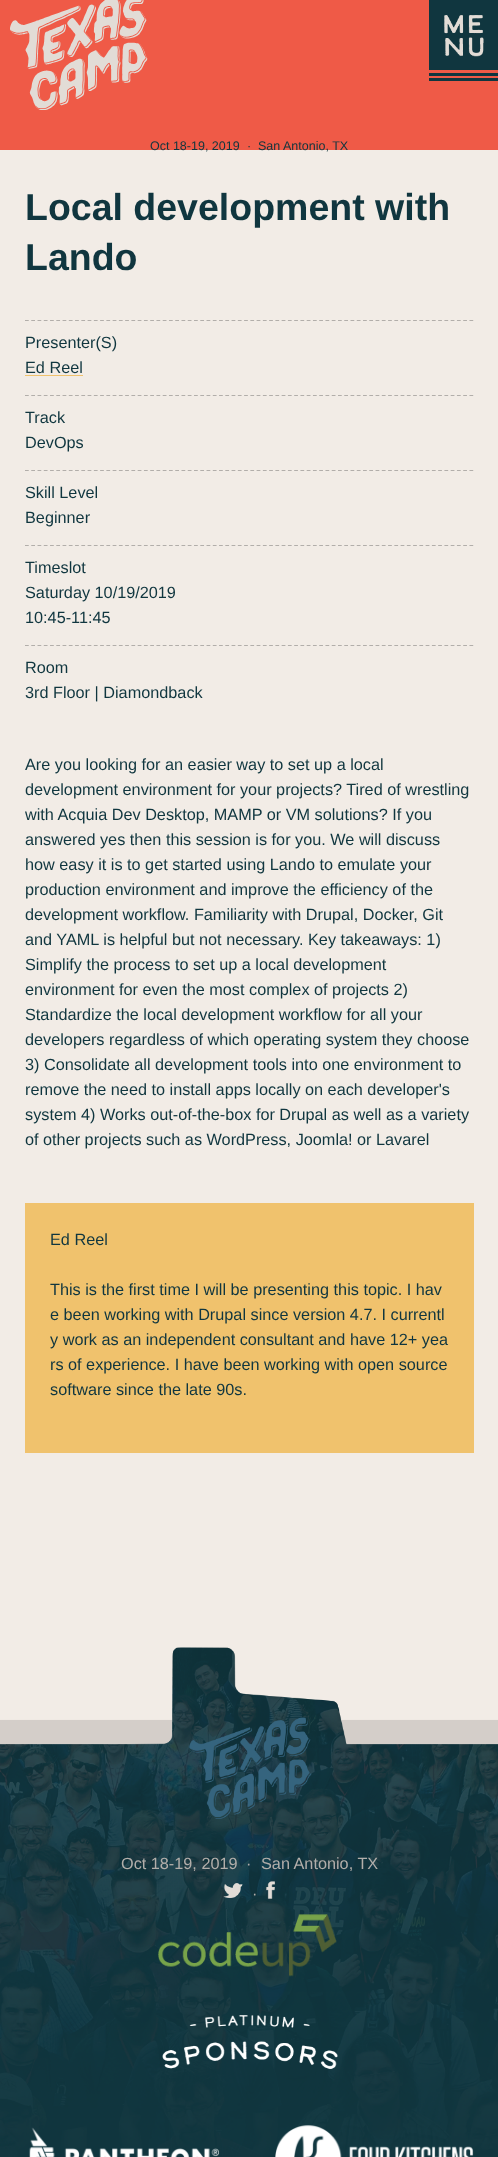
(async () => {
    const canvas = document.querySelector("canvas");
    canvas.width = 498;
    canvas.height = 2157;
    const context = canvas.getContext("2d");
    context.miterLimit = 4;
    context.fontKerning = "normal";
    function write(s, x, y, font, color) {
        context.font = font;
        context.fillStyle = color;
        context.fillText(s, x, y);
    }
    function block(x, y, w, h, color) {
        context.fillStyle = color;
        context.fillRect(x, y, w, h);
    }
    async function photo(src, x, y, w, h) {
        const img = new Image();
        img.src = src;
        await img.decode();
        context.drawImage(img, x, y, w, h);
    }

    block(0, 0, 498, 2157, "rgb(242, 236, 230)");
    block(0, 0, 498, 150, "rgb(239, 90, 71)");
    block(429, 0, 69, 70, "rgb(16, 54, 63)");
    await photo("media/1.png", 444, 15, 40, 42);
    block(429, 73, 69, 3, "rgb(16, 54, 63)");
    block(429, 78, 69, 3, "rgb(16, 54, 63)");
    await photo("media/2.png", 10, 0, 138, 110);
    write("Oct 18-19, 2019", 150, 150, "12.5px Liberation Sans", "rgb(16, 54, 63)");
    write("·", 247, 150, "12.5px Liberation Sans", "rgb(16, 54, 63)");
    write("San Antonio, TX", 258, 150, "12.5px Liberation Sans", "rgb(16, 54, 63)");
    write("Local development with", 25, 220, "bold 37.5px Liberation Sans", "rgb(16, 54, 63)");
    write("Lando", 25, 270, "bold 37.5px Liberation Sans", "rgb(16, 54, 63)");
    context.beginPath();
    context.moveTo(25, 320.5);
    context.lineTo(474, 320.5);
    context.strokeStyle = "rgb(178, 174, 170)";
    context.lineWidth = 1.2;
    context.setLineDash([3.75, 2.51]);
    context.stroke();
    write("Presenter(S)", 25, 348, "16.25px Liberation Sans", "rgb(16, 54, 63)");
    write("Ed Reel", 25, 373, "16.25px Liberation Sans", "rgb(16, 54, 63)");
    block(25, 375, 58, 1, "rgb(240, 194, 109)");
    context.beginPath();
    context.moveTo(25, 395.5);
    context.lineTo(474, 395.5);
    context.stroke();
    write("Track", 25, 423, "16.25px Liberation Sans", "rgb(16, 54, 63)");
    write("DevOps", 25, 448, "16.25px Liberation Sans", "rgb(16, 54, 63)");
    context.beginPath();
    context.moveTo(25, 470.5);
    context.lineTo(474, 470.5);
    context.stroke();
    write("Skill Level", 25, 498, "16.25px Liberation Sans", "rgb(16, 54, 63)");
    write("Beginner", 25, 523, "16.25px Liberation Sans", "rgb(16, 54, 63)");
    context.beginPath();
    context.moveTo(25, 545.5);
    context.lineTo(474, 545.5);
    context.stroke();
    write("Timeslot", 25, 573, "16.25px Liberation Sans", "rgb(16, 54, 63)");
    write("Saturday 10/19/2019", 25, 598, "16.25px Liberation Sans", "rgb(16, 54, 63)");
    write("10:45-11:45", 25, 623, "16.25px Liberation Sans", "rgb(16, 54, 63)");
    context.beginPath();
    context.moveTo(25, 645.5);
    context.lineTo(474, 645.5);
    context.stroke();
    write("Room", 25, 673, "16.25px Liberation Sans", "rgb(16, 54, 63)");
    write("3rd Floor | Diamondback", 25, 698, "16.25px Liberation Sans", "rgb(16, 54, 63)");
    write("Are you looking for an easier way to set up a local", 25, 770, "16.25px Liberation Sans", "rgb(16, 54, 63)");
    write("development environment for your projects? Tired of wrestling", 25, 795, "16.25px Liberation Sans", "rgb(16, 54, 63)");
    write("with Acquia Dev Desktop, MAMP or VM solutions? If you", 25, 820, "16.25px Liberation Sans", "rgb(16, 54, 63)");
    write("answered yes then this session is for you. We will discuss", 25, 845, "16.25px Liberation Sans", "rgb(16, 54, 63)");
    write("how easy it is to get started using Lando to emulate your", 25, 870, "16.25px Liberation Sans", "rgb(16, 54, 63)");
    write("production environment and improve the efficiency of the", 25, 895, "16.25px Liberation Sans", "rgb(16, 54, 63)");
    write("development workflow. Familiarity with Drupal, Docker, Git", 25, 920, "16.25px Liberation Sans", "rgb(16, 54, 63)");
    write("and YAML is helpful but not necessary. Key takeaways: 1)", 25, 945, "16.25px Liberation Sans", "rgb(16, 54, 63)");
    write("Simplify the process to set up a local development", 25, 970, "16.25px Liberation Sans", "rgb(16, 54, 63)");
    write("environment for even the most complex of projects 2)", 25, 995, "16.25px Liberation Sans", "rgb(16, 54, 63)");
    write("Standardize the local development workflow for all your", 25, 1020, "16.25px Liberation Sans", "rgb(16, 54, 63)");
    write("developers regardless of which operating system they choose", 25, 1045, "16.25px Liberation Sans", "rgb(16, 54, 63)");
    write("3) Consolidate all development tools into one environment to", 25, 1070, "16.25px Liberation Sans", "rgb(16, 54, 63)");
    write("remove the need to install apps locally on each developer's", 25, 1095, "16.25px Liberation Sans", "rgb(16, 54, 63)");
    write("system 4) Works out-of-the-box for Drupal as well as a variety", 25, 1120, "16.25px Liberation Sans", "rgb(16, 54, 63)");
    write("of other projects such as WordPress, Joomla! or Lavarel", 25, 1145, "16.25px Liberation Sans", "rgb(16, 54, 63)");
    block(25, 1203, 449, 250, "rgb(240, 194, 109)");
    write("Ed Reel", 50, 1245, "16.25px Liberation Sans", "rgb(16, 54, 63)");
    write("This is the first time I will be presenting this topic. I hav", 50, 1295, "16.25px Liberation Sans", "rgb(16, 54, 63)");
    write("e been working with Drupal since version 4.7. I currentl", 50, 1320, "16.25px Liberation Sans", "rgb(16, 54, 63)");
    write("y work as an independent consultant and have 12+ yea", 50, 1345, "16.25px Liberation Sans", "rgb(16, 54, 63)");
    write("rs of experience. I have been working with open source", 50, 1370, "16.25px Liberation Sans", "rgb(16, 54, 63)");
    write("software since the late 90s.", 50, 1395, "16.25px Liberation Sans", "rgb(16, 54, 63)");
    await photo("media/3.png", 0, 1647, 498, 510);
    await photo("media/4.png", 189, 1717, 123, 102);
    write("Oct 18-19, 2019", 121, 1869, "16.25px Liberation Sans", "rgb(178, 174, 170)");
    write("·", 246, 1869, "16.25px Liberation Sans", "rgb(178, 174, 170)");
    write("San Antonio, TX", 261, 1869, "16.25px Liberation Sans", "rgb(178, 174, 170)");
    await photo("media/5.png", 223, 1883, 20, 15);
    write("·", 252, 1899, "16.25px Liberation Sans", "rgb(178, 174, 170)");
    await photo("media/6.png", 266, 1881, 9, 18);
    await photo("media/7.png", 158, 1914, 179, 63);
    await photo("media/8.png", 162, 2015, 176, 54);
    await photo("media/9.png", 29, 2127, 190, 30);
    await photo("media/10.png", 275, 2125, 199, 32);
})();
